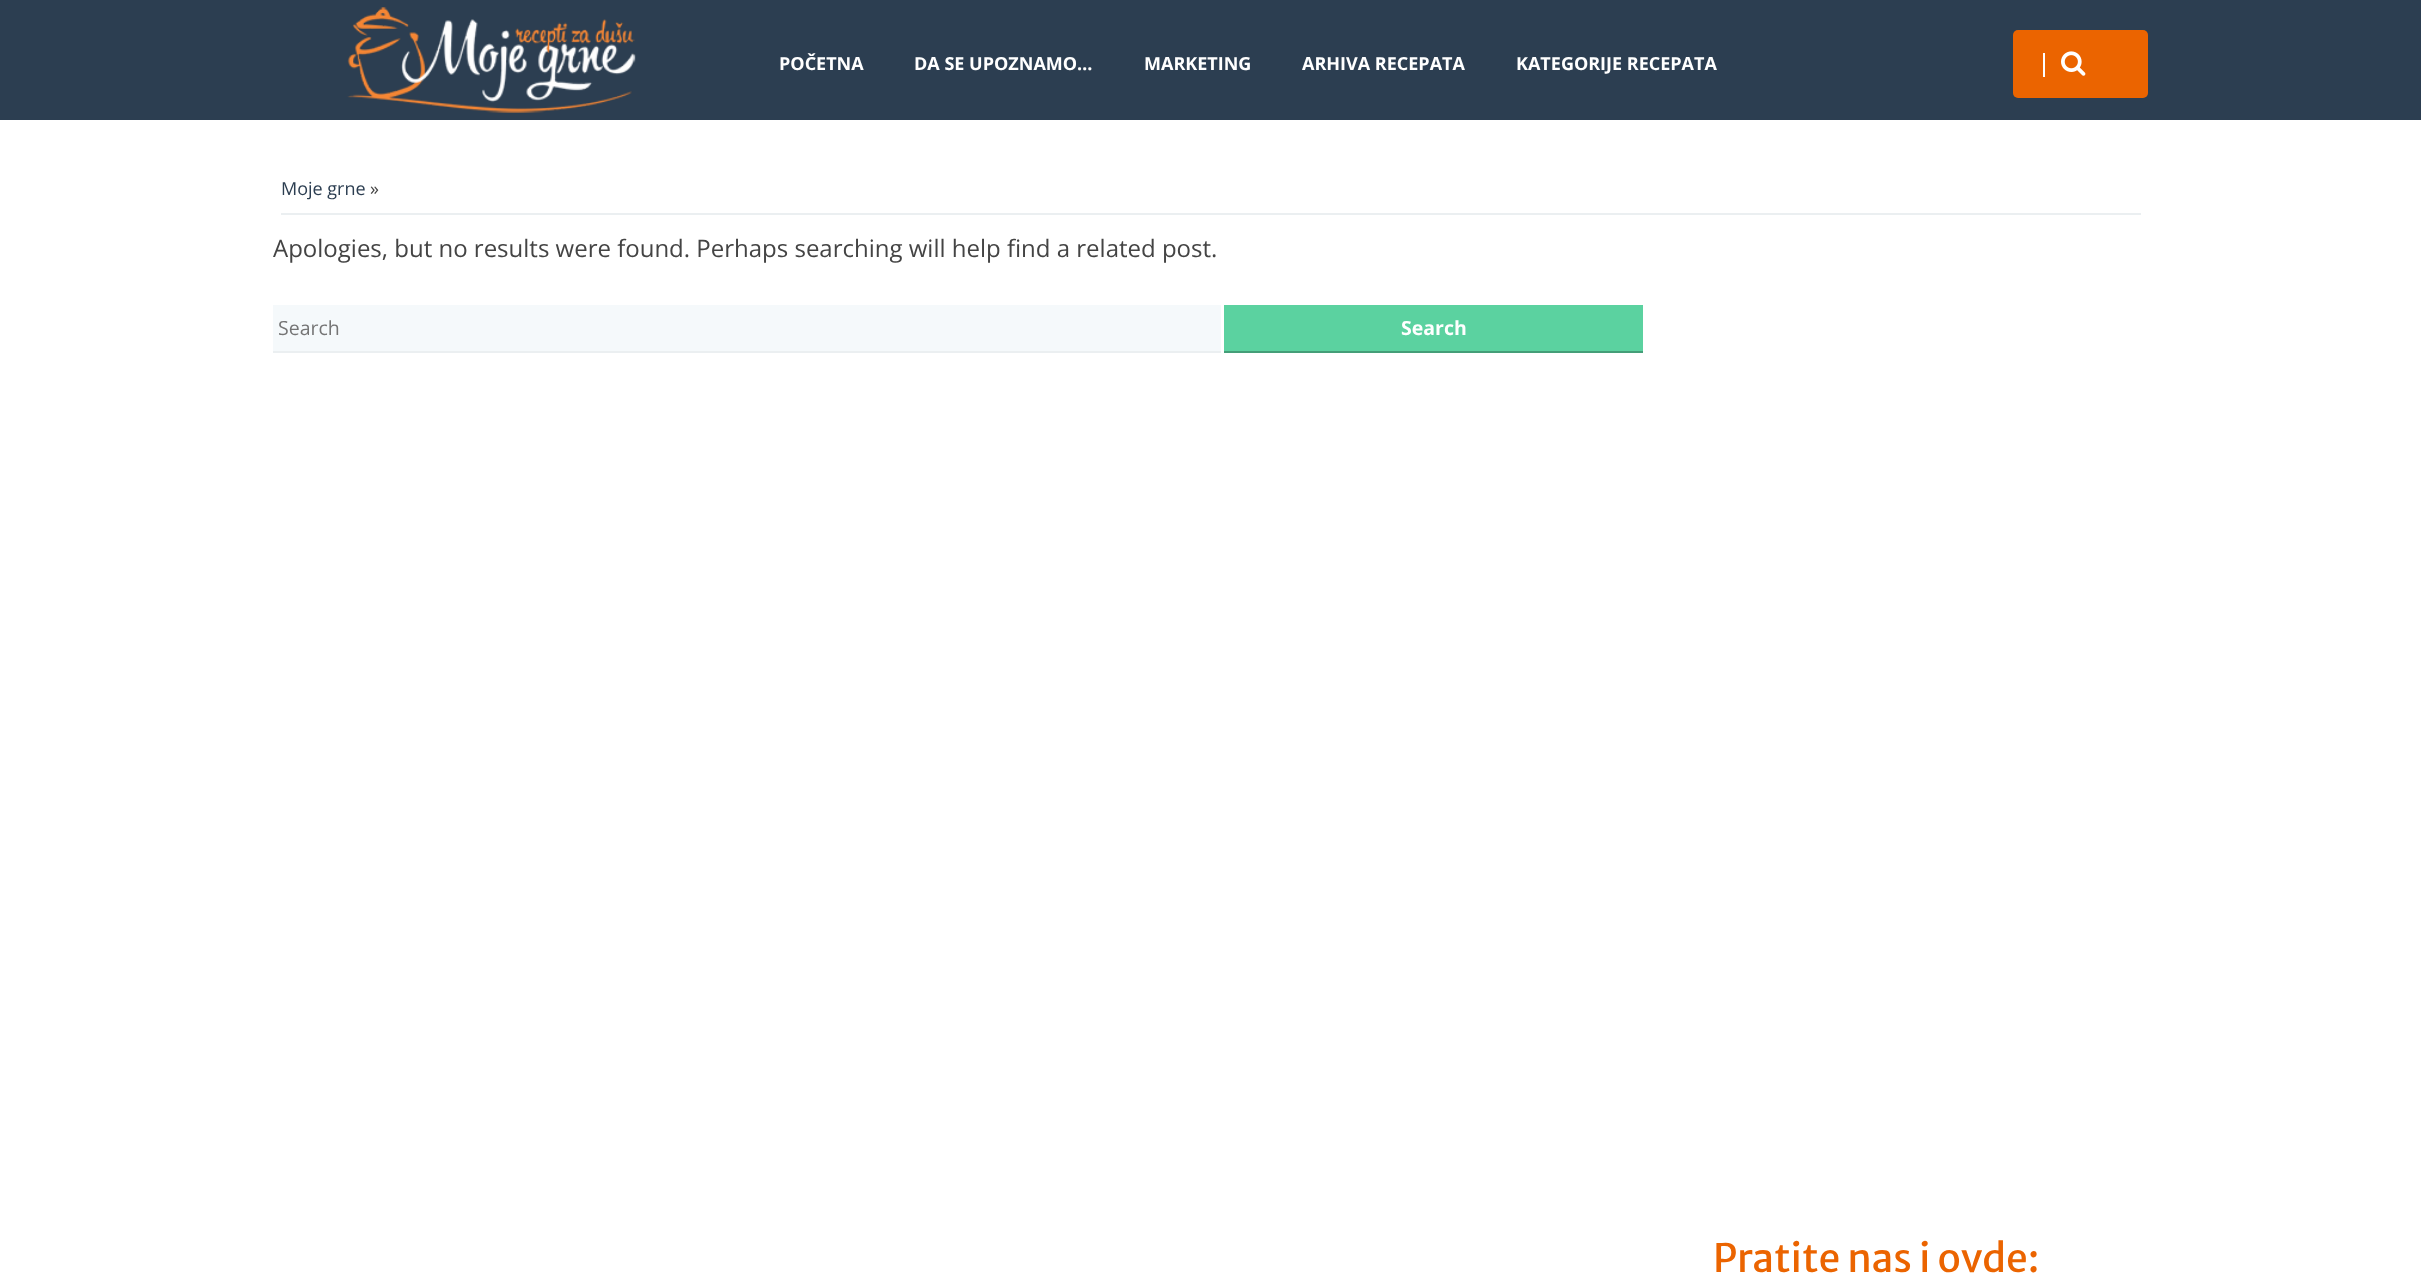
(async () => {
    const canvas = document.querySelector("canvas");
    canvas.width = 2421;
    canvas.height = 1285;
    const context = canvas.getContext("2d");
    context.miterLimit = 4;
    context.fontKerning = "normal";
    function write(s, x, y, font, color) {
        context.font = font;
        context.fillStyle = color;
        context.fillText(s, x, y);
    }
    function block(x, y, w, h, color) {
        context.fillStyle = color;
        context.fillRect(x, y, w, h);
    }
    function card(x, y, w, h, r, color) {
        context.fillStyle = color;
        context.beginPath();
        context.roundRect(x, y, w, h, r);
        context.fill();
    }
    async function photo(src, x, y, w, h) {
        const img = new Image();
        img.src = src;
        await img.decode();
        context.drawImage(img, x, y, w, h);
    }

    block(0, 0, 2421, 1285, "rgb(255, 255, 255)");
    block(0, 0, 2421, 120, "rgb(44, 62, 81)");
    await photo("media/1.png", 347, 7, 289, 106);
    write("POČETNA", 779, 70, "bold 18px Open Sans", "rgb(255, 255, 255)");
    write("DA SE UPOZNAMO…", 914, 70, "bold 18px Open Sans", "rgb(255, 255, 255)");
    write("MARKETING", 1144, 70, "bold 18px Open Sans", "rgb(255, 255, 255)");
    write("ARHIVA RECEPATA", 1302, 70, "bold 18px Open Sans", "rgb(255, 255, 255)");
    write("KATEGORIJE RECEPATA", 1516, 70, "bold 18px Open Sans", "rgb(255, 255, 255)");
    card(2013, 30, 135, 68, 5, "rgb(235, 100, 0)");
    block(2043, 53, 2, 24, "rgb(255, 255, 255)");
    await photo("media/2.png", 2061, 51, 25, 25);
    block(281, 213, 1860, 2, "rgb(235, 239, 241)");
    write("Moje grne", 281, 195, "18px Open Sans", "rgb(44, 62, 81)");
    write("»", 370, 195, "18px Open Sans", "rgb(68, 68, 68)");
    write("Apologies, but no results were found. Perhaps searching will help find a related post.", 273, 257, "24px Open Sans", "rgb(68, 68, 68)");
    block(273, 305, 948, 46, "rgb(245, 249, 251)");
    block(273, 351, 948, 2, "rgb(235, 239, 241)");
    write("Search", 278, 335, "19.5px Open Sans", "rgb(117, 117, 117)");
    block(1224, 305, 419, 46, "rgb(91, 210, 160)");
    block(1224, 351, 419, 2, "rgb(68, 158, 120)");
    write("Search", 1401, 335, "bold 19.5px Open Sans", "rgb(255, 255, 255)");
    write("Pratite nas i ovde:", 1713, 1272, "39px Merriweather Sans", "rgb(235, 100, 0)");
})();
